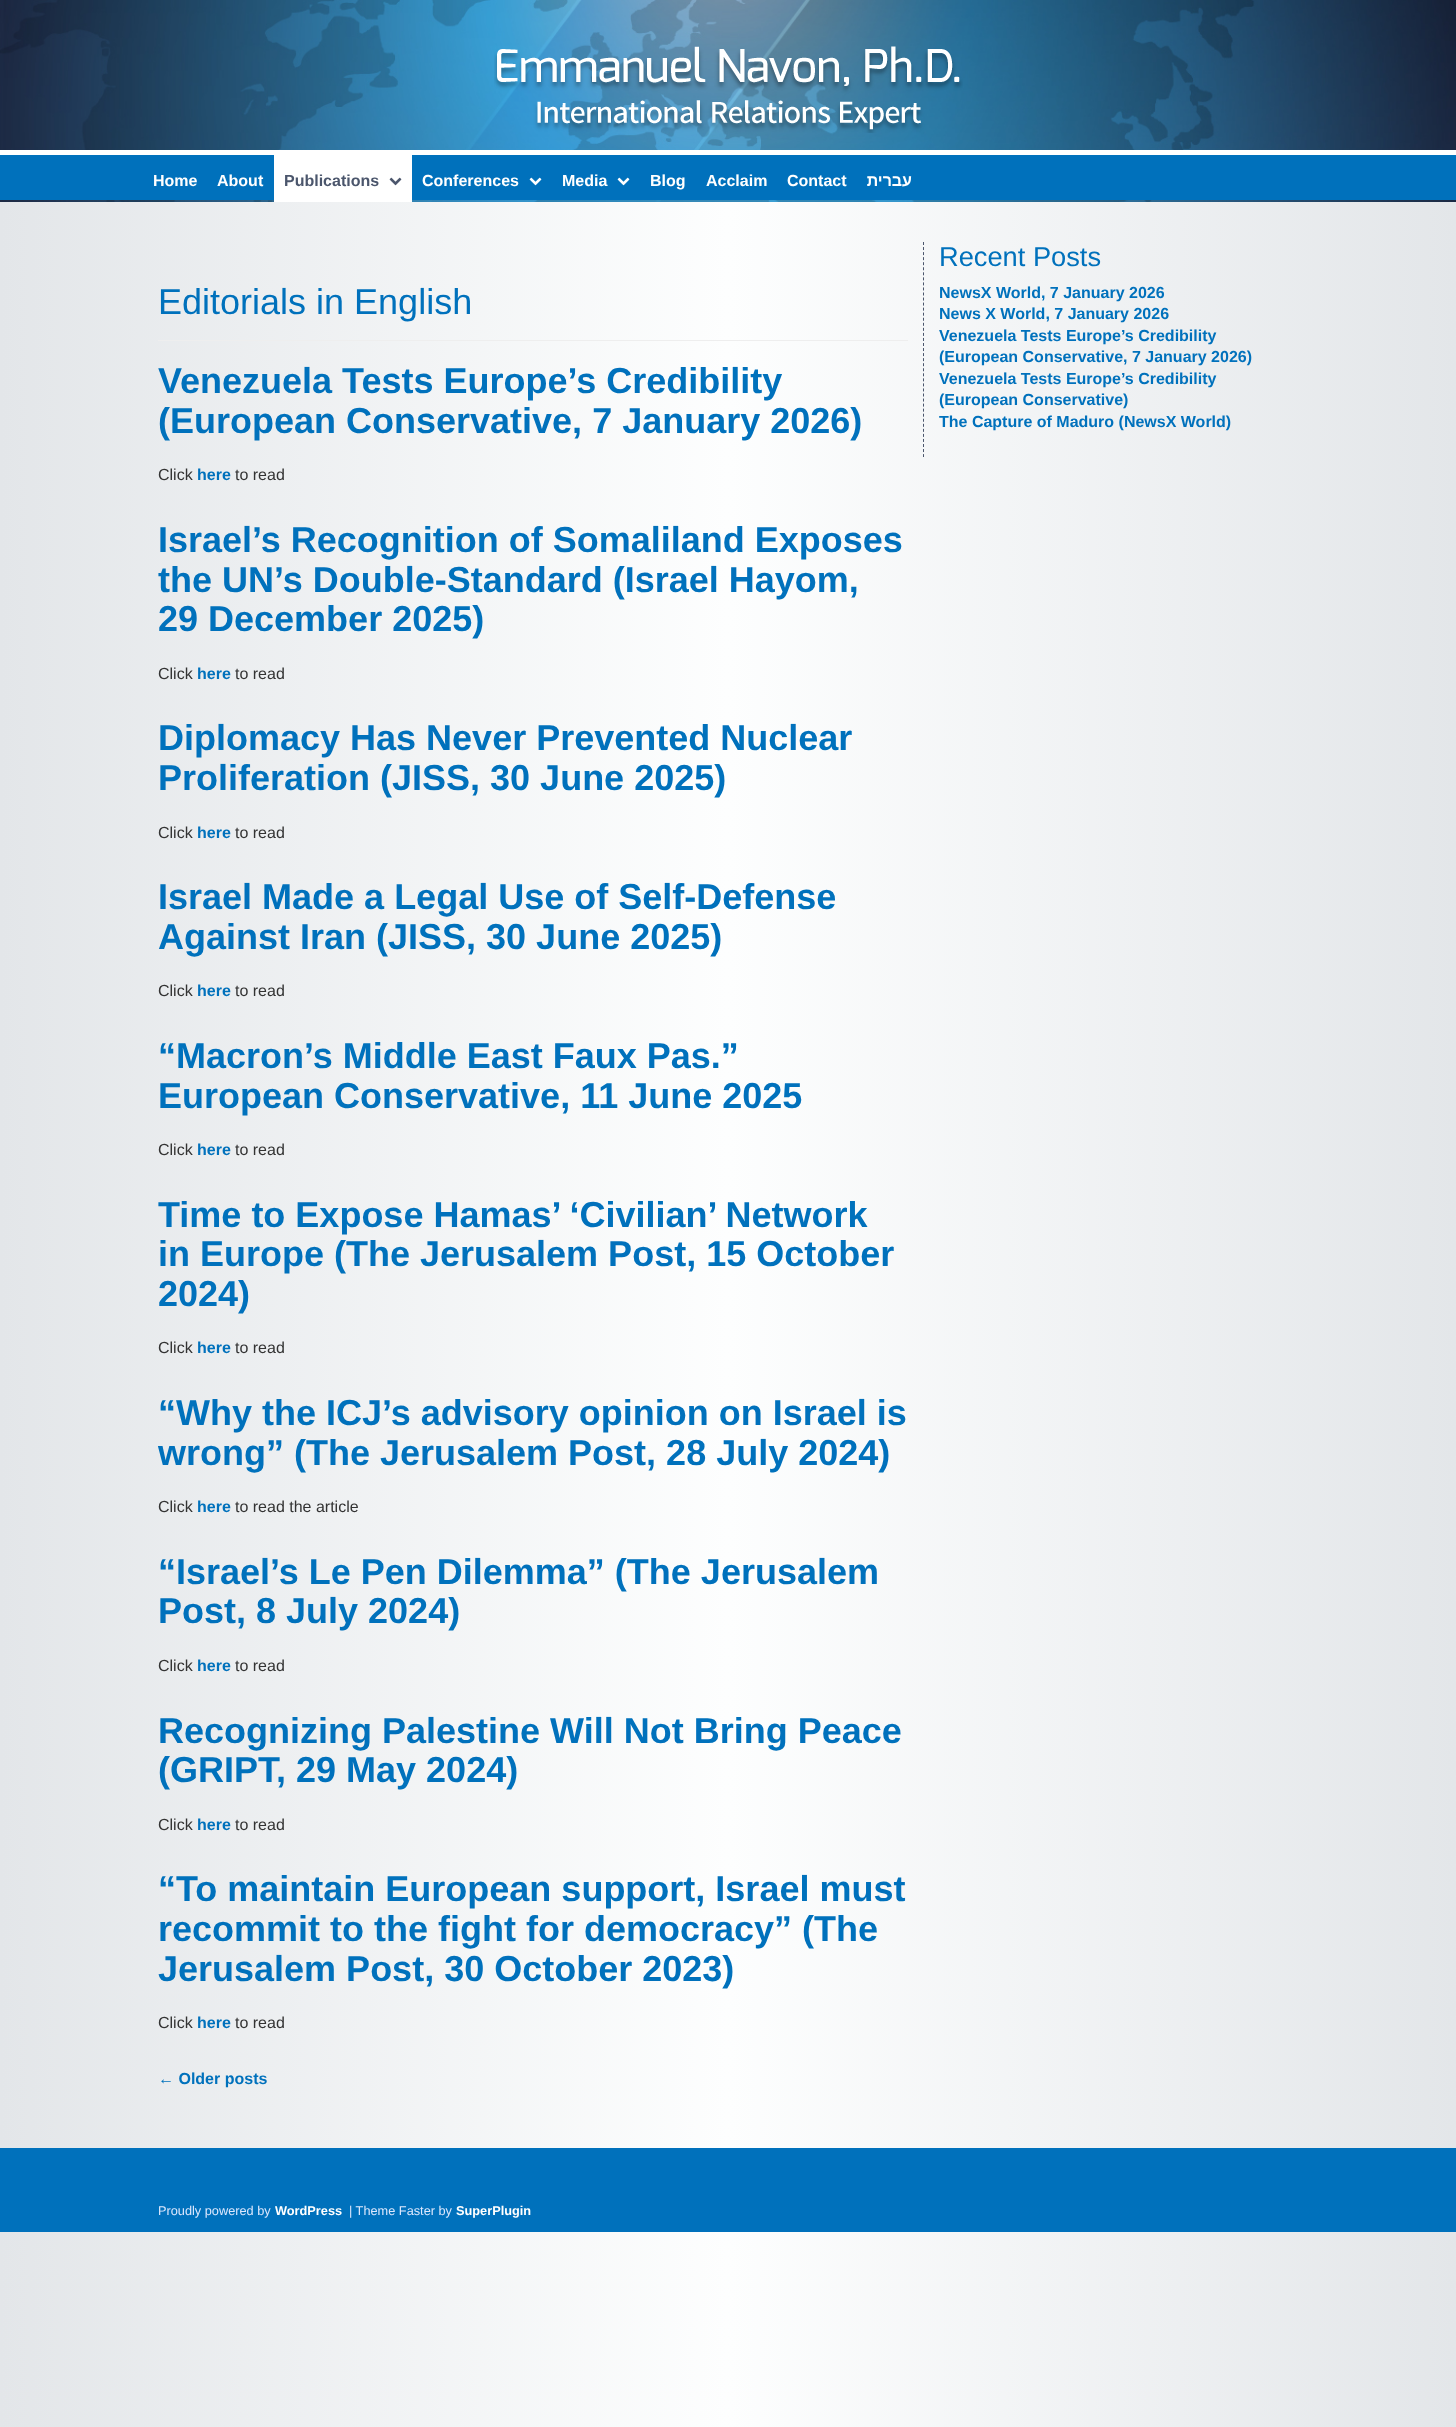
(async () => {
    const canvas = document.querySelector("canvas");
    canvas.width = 1456;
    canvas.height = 2427;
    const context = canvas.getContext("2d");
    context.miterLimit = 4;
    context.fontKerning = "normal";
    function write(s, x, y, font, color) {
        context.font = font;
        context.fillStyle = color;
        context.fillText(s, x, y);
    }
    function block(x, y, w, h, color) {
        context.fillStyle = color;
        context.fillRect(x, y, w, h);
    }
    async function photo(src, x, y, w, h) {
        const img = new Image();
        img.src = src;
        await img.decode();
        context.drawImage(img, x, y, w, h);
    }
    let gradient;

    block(0, 0, 1456, 2427, "rgb(255, 255, 255)");
    gradient = context.createLinearGradient(0, 1116, 1456, 1116);
    gradient.addColorStop(0, "rgb(227, 230, 233)");
    gradient.addColorStop(0.5, "rgb(253, 254, 254)");
    gradient.addColorStop(1, "rgb(227, 230, 233)");
    context.fillStyle = gradient;
    context.fillRect(0, 202, 1456, 2225);
    await photo("media/1.png", 0, 0, 1456, 202);
    await photo("media/2.png", 494, 46, 469, 87);
    block(0, 155, 1456, 45, "rgb(0, 113, 188)");
    block(0, 150, 1456, 5, "rgb(255, 255, 255)");
    write("Home", 153, 186, "bold 16px Liberation Sans", "rgb(255, 255, 255)");
    write("About", 217, 186, "bold 16px Liberation Sans", "rgb(255, 255, 255)");
    block(274, 155, 138, 47, "rgb(255, 255, 255)");
    write("Publications", 284, 186, "bold 16px Liberation Sans", "rgb(75, 86, 108)");
    await photo("media/3.png", 389, 177, 13, 9);
    write("Conferences", 422, 186, "bold 16px Liberation Sans", "rgb(255, 255, 255)");
    await photo("media/4.png", 529, 177, 13, 9);
    write("Media", 562, 186, "bold 16px Liberation Sans", "rgb(255, 255, 255)");
    await photo("media/4.png", 617, 177, 13, 9);
    write("Blog", 650, 186, "bold 16px Liberation Sans", "rgb(255, 255, 255)");
    write("Acclaim", 706, 186, "bold 16px Liberation Sans", "rgb(255, 255, 255)");
    write("Contact", 787, 186, "bold 16px Liberation Sans", "rgb(255, 255, 255)");
    context.direction = "rtl";
    write("עברית", 912, 186, "bold 16px Liberation Sans", "rgb(255, 255, 255)");
    block(158, 340, 750, 1, "rgb(238, 238, 238)");
    context.direction = "ltr";
    write("Editorials in English", 158, 314, "36px Liberation Sans", "rgb(0, 113, 188)");
    write("Venezuela Tests Europe’s Credibility", 158, 393, "bold 36px Liberation Sans", "rgb(0, 113, 188)");
    write("(European Conservative, 7 January 2026)", 158, 433, "bold 36px Liberation Sans", "rgb(0, 113, 188)");
    write("Click", 158, 480, "16px Liberation Sans", "rgb(51, 51, 51)");
    write("here", 197, 480, "bold 16px Liberation Sans", "rgb(0, 113, 188)");
    write("to read", 235, 480, "16px Liberation Sans", "rgb(51, 51, 51)");
    write("Israel’s Recognition of Somaliland Exposes", 158, 552, "bold 36px Liberation Sans", "rgb(0, 113, 188)");
    write("the UN’s Double-Standard (Israel Hayom,", 158, 592, "bold 36px Liberation Sans", "rgb(0, 113, 188)");
    write("29 December 2025)", 158, 631, "bold 36px Liberation Sans", "rgb(0, 113, 188)");
    write("Click", 158, 679, "16px Liberation Sans", "rgb(51, 51, 51)");
    write("here", 197, 679, "bold 16px Liberation Sans", "rgb(0, 113, 188)");
    write("to read", 235, 679, "16px Liberation Sans", "rgb(51, 51, 51)");
    write("Diplomacy Has Never Prevented Nuclear", 158, 750, "bold 36px Liberation Sans", "rgb(0, 113, 188)");
    write("Proliferation (JISS, 30 June 2025)", 158, 790, "bold 36px Liberation Sans", "rgb(0, 113, 188)");
    write("Click", 158, 838, "16px Liberation Sans", "rgb(51, 51, 51)");
    write("here", 197, 838, "bold 16px Liberation Sans", "rgb(0, 113, 188)");
    write("to read", 235, 838, "16px Liberation Sans", "rgb(51, 51, 51)");
    write("Israel Made a Legal Use of Self-Defense", 158, 909, "bold 36px Liberation Sans", "rgb(0, 113, 188)");
    write("Against Iran (JISS, 30 June 2025)", 158, 949, "bold 36px Liberation Sans", "rgb(0, 113, 188)");
    write("Click", 158, 996, "16px Liberation Sans", "rgb(51, 51, 51)");
    write("here", 197, 996, "bold 16px Liberation Sans", "rgb(0, 113, 188)");
    write("to read", 235, 996, "16px Liberation Sans", "rgb(51, 51, 51)");
    write("“Macron’s Middle East Faux Pas.”", 158, 1068, "bold 36px Liberation Sans", "rgb(0, 113, 188)");
    write("European Conservative, 11 June 2025", 158, 1108, "bold 36px Liberation Sans", "rgb(0, 113, 188)");
    write("Click", 158, 1155, "16px Liberation Sans", "rgb(51, 51, 51)");
    write("here", 197, 1155, "bold 16px Liberation Sans", "rgb(0, 113, 188)");
    write("to read", 235, 1155, "16px Liberation Sans", "rgb(51, 51, 51)");
    write("Time to Expose Hamas’ ‘Civilian’ Network", 158, 1227, "bold 36px Liberation Sans", "rgb(0, 113, 188)");
    write("in Europe (The Jerusalem Post, 15 October", 158, 1266, "bold 36px Liberation Sans", "rgb(0, 113, 188)");
    write("2024)", 158, 1306, "bold 36px Liberation Sans", "rgb(0, 113, 188)");
    write("Click", 158, 1353, "16px Liberation Sans", "rgb(51, 51, 51)");
    write("here", 197, 1353, "bold 16px Liberation Sans", "rgb(0, 113, 188)");
    write("to read", 235, 1353, "16px Liberation Sans", "rgb(51, 51, 51)");
    write("“Why the ICJ’s advisory opinion on Israel is", 158, 1425, "bold 36px Liberation Sans", "rgb(0, 113, 188)");
    write("wrong” (The Jerusalem Post, 28 July 2024)", 158, 1465, "bold 36px Liberation Sans", "rgb(0, 113, 188)");
    write("Click", 158, 1512, "16px Liberation Sans", "rgb(51, 51, 51)");
    write("here", 197, 1512, "bold 16px Liberation Sans", "rgb(0, 113, 188)");
    write("to read the article", 235, 1512, "16px Liberation Sans", "rgb(51, 51, 51)");
    write("“Israel’s Le Pen Dilemma” (The Jerusalem", 158, 1584, "bold 36px Liberation Sans", "rgb(0, 113, 188)");
    write("Post, 8 July 2024)", 158, 1623, "bold 36px Liberation Sans", "rgb(0, 113, 188)");
    write("Click", 158, 1671, "16px Liberation Sans", "rgb(51, 51, 51)");
    write("here", 197, 1671, "bold 16px Liberation Sans", "rgb(0, 113, 188)");
    write("to read", 235, 1671, "16px Liberation Sans", "rgb(51, 51, 51)");
    write("Recognizing Palestine Will Not Bring Peace", 158, 1743, "bold 36px Liberation Sans", "rgb(0, 113, 188)");
    write("(GRIPT, 29 May 2024)", 158, 1782, "bold 36px Liberation Sans", "rgb(0, 113, 188)");
    write("Click", 158, 1830, "16px Liberation Sans", "rgb(51, 51, 51)");
    write("here", 197, 1830, "bold 16px Liberation Sans", "rgb(0, 113, 188)");
    write("to read", 235, 1830, "16px Liberation Sans", "rgb(51, 51, 51)");
    write("“To maintain European support, Israel must", 158, 1901, "bold 36px Liberation Sans", "rgb(0, 113, 188)");
    write("recommit to the fight for democracy” (The", 158, 1941, "bold 36px Liberation Sans", "rgb(0, 113, 188)");
    write("Jerusalem Post, 30 October 2023)", 158, 1981, "bold 36px Liberation Sans", "rgb(0, 113, 188)");
    write("Click", 158, 2028, "16px Liberation Sans", "rgb(51, 51, 51)");
    write("here", 197, 2028, "bold 16px Liberation Sans", "rgb(0, 113, 188)");
    write("to read", 235, 2028, "16px Liberation Sans", "rgb(51, 51, 51)");
    write("← Older posts", 158, 2084, "bold 16px Liberation Sans", "rgb(0, 113, 188)");
    context.beginPath();
    context.moveTo(923.5, 242);
    context.lineTo(923.5, 457);
    context.strokeStyle = "rgb(75, 86, 108)";
    context.setLineDash([3, 2.05]);
    context.stroke();
    write("Recent Posts", 939, 266, "27.25px Liberation Sans", "rgb(0, 113, 188)");
    write("NewsX World, 7 January 2026", 939, 298, "bold 16px Liberation Sans", "rgb(0, 113, 188)");
    write("News X World, 7 January 2026", 939, 319, "bold 16px Liberation Sans", "rgb(0, 113, 188)");
    write("Venezuela Tests Europe’s Credibility", 939, 341, "bold 16px Liberation Sans", "rgb(0, 113, 188)");
    write("(European Conservative, 7 January 2026)", 939, 362, "bold 16px Liberation Sans", "rgb(0, 113, 188)");
    write("Venezuela Tests Europe’s Credibility", 939, 384, "bold 16px Liberation Sans", "rgb(0, 113, 188)");
    write("(European Conservative)", 939, 405, "bold 16px Liberation Sans", "rgb(0, 113, 188)");
    write("The Capture of Maduro (NewsX World)", 939, 427, "bold 16px Liberation Sans", "rgb(0, 113, 188)");
    block(0, 2148, 1456, 84, "rgb(0, 113, 188)");
    write("Proudly powered by", 158, 2215, "12.75px Liberation Sans", "rgb(221, 232, 254)");
    write("WordPress", 275, 2215, "bold 12.75px Liberation Sans", "rgb(255, 255, 255)");
    write("| Theme Faster by", 349, 2215, "12.75px Liberation Sans", "rgb(221, 232, 254)");
    write("SuperPlugin", 456, 2215, "bold 12.75px Liberation Sans", "rgb(255, 255, 255)");
})();
